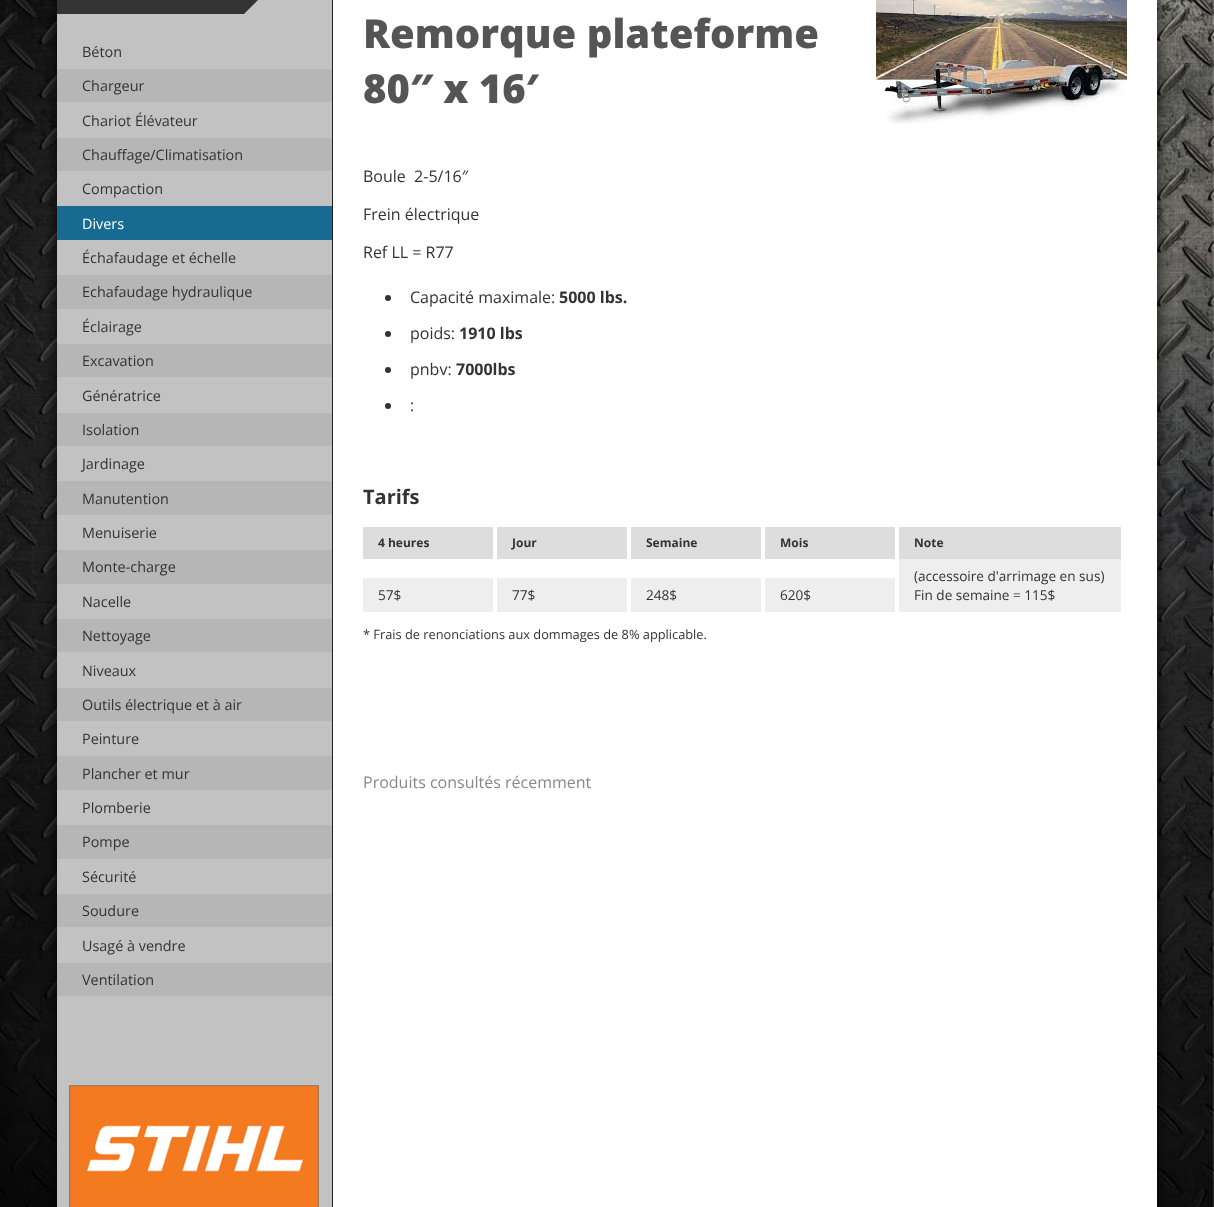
(async () => {
    const canvas = document.querySelector("canvas");
    canvas.width = 1214;
    canvas.height = 1207;
    const context = canvas.getContext("2d");
    context.miterLimit = 4;
    context.fontKerning = "normal";
    function write(s, x, y, font, color) {
        context.font = font;
        context.fillStyle = color;
        context.fillText(s, x, y);
    }
    function block(x, y, w, h, color) {
        context.fillStyle = color;
        context.fillRect(x, y, w, h);
    }
    async function photo(src, x, y, w, h) {
        const img = new Image();
        img.src = src;
        await img.decode();
        context.drawImage(img, x, y, w, h);
    }

    block(0, 0, 1214, 1207, "rgb(255, 255, 255)");
    await photo("media/1.png", 0, 0, 1214, 1207);
    context.fillStyle = "rgba(0, 0, 0, 0.9)";
    context.filter = "blur(7.5px)";
    context.beginPath();
    context.roundRect(57, -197, 1100, 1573, 174);
    context.fill();
    context.filter = "none";
    block(333, 0, 824, 1207, "rgb(255, 255, 255)");
    block(57, 0, 275, 1207, "rgb(194, 194, 194)");
    block(332, 0, 1, 1207, "rgb(34, 34, 34)");
    await photo("media/2.png", 57, 0, 201, 14);
    write("Béton", 82, 57, "14.4px Open Sans", "rgb(51, 51, 51)");
    block(57, 69, 275, 33, "rgb(182, 182, 182)");
    write("Chargeur", 82, 91, "14.4px Open Sans", "rgb(51, 51, 51)");
    write("Chariot Élévateur", 82, 126, "14.4px Open Sans", "rgb(51, 51, 51)");
    block(57, 138, 275, 33, "rgb(182, 182, 182)");
    write("Chauffage/Climatisation", 82, 160, "14.4px Open Sans", "rgb(51, 51, 51)");
    write("Compaction", 82, 194, "14.4px Open Sans", "rgb(51, 51, 51)");
    block(57, 206, 275, 34, "rgb(23, 107, 146)");
    write("Divers", 82, 229, "14.4px Open Sans", "rgb(255, 255, 255)");
    write("Échafaudage et échelle", 82, 263, "14.4px Open Sans", "rgb(51, 51, 51)");
    block(57, 275, 275, 34, "rgb(182, 182, 182)");
    write("Echafaudage hydraulique", 82, 297, "14.4px Open Sans", "rgb(51, 51, 51)");
    write("Éclairage", 82, 332, "14.4px Open Sans", "rgb(51, 51, 51)");
    block(57, 344, 275, 33, "rgb(182, 182, 182)");
    write("Excavation", 82, 366, "14.4px Open Sans", "rgb(51, 51, 51)");
    write("Génératrice", 82, 401, "14.4px Open Sans", "rgb(51, 51, 51)");
    block(57, 413, 275, 33, "rgb(182, 182, 182)");
    write("Isolation", 82, 435, "14.4px Open Sans", "rgb(51, 51, 51)");
    write("Jardinage", 82, 469, "14.4px Open Sans", "rgb(51, 51, 51)");
    block(57, 481, 275, 34, "rgb(182, 182, 182)");
    write("Manutention", 82, 504, "14.4px Open Sans", "rgb(51, 51, 51)");
    write("Menuiserie", 82, 538, "14.4px Open Sans", "rgb(51, 51, 51)");
    block(57, 550, 275, 34, "rgb(182, 182, 182)");
    write("Monte-charge", 82, 572, "14.4px Open Sans", "rgb(51, 51, 51)");
    write("Nacelle", 82, 607, "14.4px Open Sans", "rgb(51, 51, 51)");
    block(57, 619, 275, 33, "rgb(182, 182, 182)");
    write("Nettoyage", 82, 641, "14.4px Open Sans", "rgb(51, 51, 51)");
    write("Niveaux", 82, 676, "14.4px Open Sans", "rgb(51, 51, 51)");
    block(57, 688, 275, 33, "rgb(182, 182, 182)");
    write("Outils électrique et à air", 82, 710, "14.4px Open Sans", "rgb(51, 51, 51)");
    write("Peinture", 82, 744, "14.4px Open Sans", "rgb(51, 51, 51)");
    block(57, 756, 275, 34, "rgb(182, 182, 182)");
    write("Plancher et mur", 82, 779, "14.4px Open Sans", "rgb(51, 51, 51)");
    write("Plomberie", 82, 813, "14.4px Open Sans", "rgb(51, 51, 51)");
    block(57, 825, 275, 34, "rgb(182, 182, 182)");
    write("Pompe", 82, 847, "14.4px Open Sans", "rgb(51, 51, 51)");
    write("Sécurité", 82, 882, "14.4px Open Sans", "rgb(51, 51, 51)");
    block(57, 894, 275, 33, "rgb(182, 182, 182)");
    write("Soudure", 82, 916, "14.4px Open Sans", "rgb(51, 51, 51)");
    write("Usagé à vendre", 82, 951, "14.4px Open Sans", "rgb(51, 51, 51)");
    block(57, 963, 275, 33, "rgb(182, 182, 182)");
    write("Ventilation", 82, 985, "14.4px Open Sans", "rgb(51, 51, 51)");
    await photo("media/3.png", 69, 1085, 250, 122);
    write("Remorque plateforme", 363, 48, "800 40px Open Sans", "rgb(85, 85, 85)");
    write("80″ x 16′", 363, 103, "800 40px Open Sans", "rgb(85, 85, 85)");
    await photo("media/4.png", 876, 0, 251, 124);
    write("Boule  2-5/16″", 363, 182, "16px Open Sans", "rgb(51, 51, 51)");
    write("Frein électrique", 363, 220, "16px Open Sans", "rgb(51, 51, 51)");
    write("Ref LL = R77", 363, 258, "16px Open Sans", "rgb(51, 51, 51)");
    context.beginPath();
    context.arc(388, 298, 3, 0, Math.PI * 2);
    context.fill();
    write("Capacité maximale:", 410, 303, "16px Open Sans", "rgb(51, 51, 51)");
    write("5000 lbs.", 559, 303, "bold 16px Open Sans", "rgb(51, 51, 51)");
    context.beginPath();
    context.arc(388, 334, 3, 0, Math.PI * 2);
    context.fill();
    write("poids:", 410, 339, "16px Open Sans", "rgb(51, 51, 51)");
    write("1910 lbs", 459, 339, "bold 16px Open Sans", "rgb(51, 51, 51)");
    context.beginPath();
    context.arc(388, 370, 3, 0, Math.PI * 2);
    context.fill();
    write("pnbv:", 410, 375, "16px Open Sans", "rgb(51, 51, 51)");
    write("7000lbs", 456, 375, "bold 16px Open Sans", "rgb(51, 51, 51)");
    context.beginPath();
    context.arc(388, 406, 3, 0, Math.PI * 2);
    context.fill();
    write(":", 410, 411, "16px Open Sans", "rgb(51, 51, 51)");
    write("Tarifs", 363, 504, "bold 20px Open Sans", "rgb(51, 51, 51)");
    block(363, 527, 130, 32, "rgb(221, 221, 221)");
    write("4 heures", 378, 547, "bold 12px Open Sans", "rgb(51, 51, 51)");
    block(497, 527, 130, 32, "rgb(221, 221, 221)");
    write("Jour", 512, 547, "bold 12px Open Sans", "rgb(51, 51, 51)");
    block(631, 527, 130, 32, "rgb(221, 221, 221)");
    write("Semaine", 646, 547, "bold 12px Open Sans", "rgb(51, 51, 51)");
    block(765, 527, 130, 32, "rgb(221, 221, 221)");
    write("Mois", 780, 547, "bold 12px Open Sans", "rgb(51, 51, 51)");
    block(899, 527, 222, 32, "rgb(221, 221, 221)");
    write("Note", 914, 547, "bold 12px Open Sans", "rgb(51, 51, 51)");
    block(363, 578, 130, 34, "rgb(238, 238, 238)");
    write("57$", 378, 600, "13.6px Open Sans", "rgb(51, 51, 51)");
    block(497, 578, 130, 34, "rgb(238, 238, 238)");
    write("77$", 512, 600, "13.6px Open Sans", "rgb(51, 51, 51)");
    block(631, 578, 130, 34, "rgb(238, 238, 238)");
    write("248$", 646, 600, "13.6px Open Sans", "rgb(51, 51, 51)");
    block(765, 578, 130, 34, "rgb(238, 238, 238)");
    write("620$", 780, 600, "13.6px Open Sans", "rgb(51, 51, 51)");
    block(899, 559, 222, 53, "rgb(238, 238, 238)");
    write("(accessoire d'arrimage en sus)", 914, 581, "13.6px Open Sans", "rgb(51, 51, 51)");
    write("Fin de semaine = 115$", 914, 600, "13.6px Open Sans", "rgb(51, 51, 51)");
    write("* Frais de renonciations aux dommages de 8% applicable.", 363, 639, "12.8px Open Sans", "rgb(51, 51, 51)");
    write("Produits consultés récemment", 363, 788, "16px Open Sans", "rgb(136, 136, 136)");
})();
